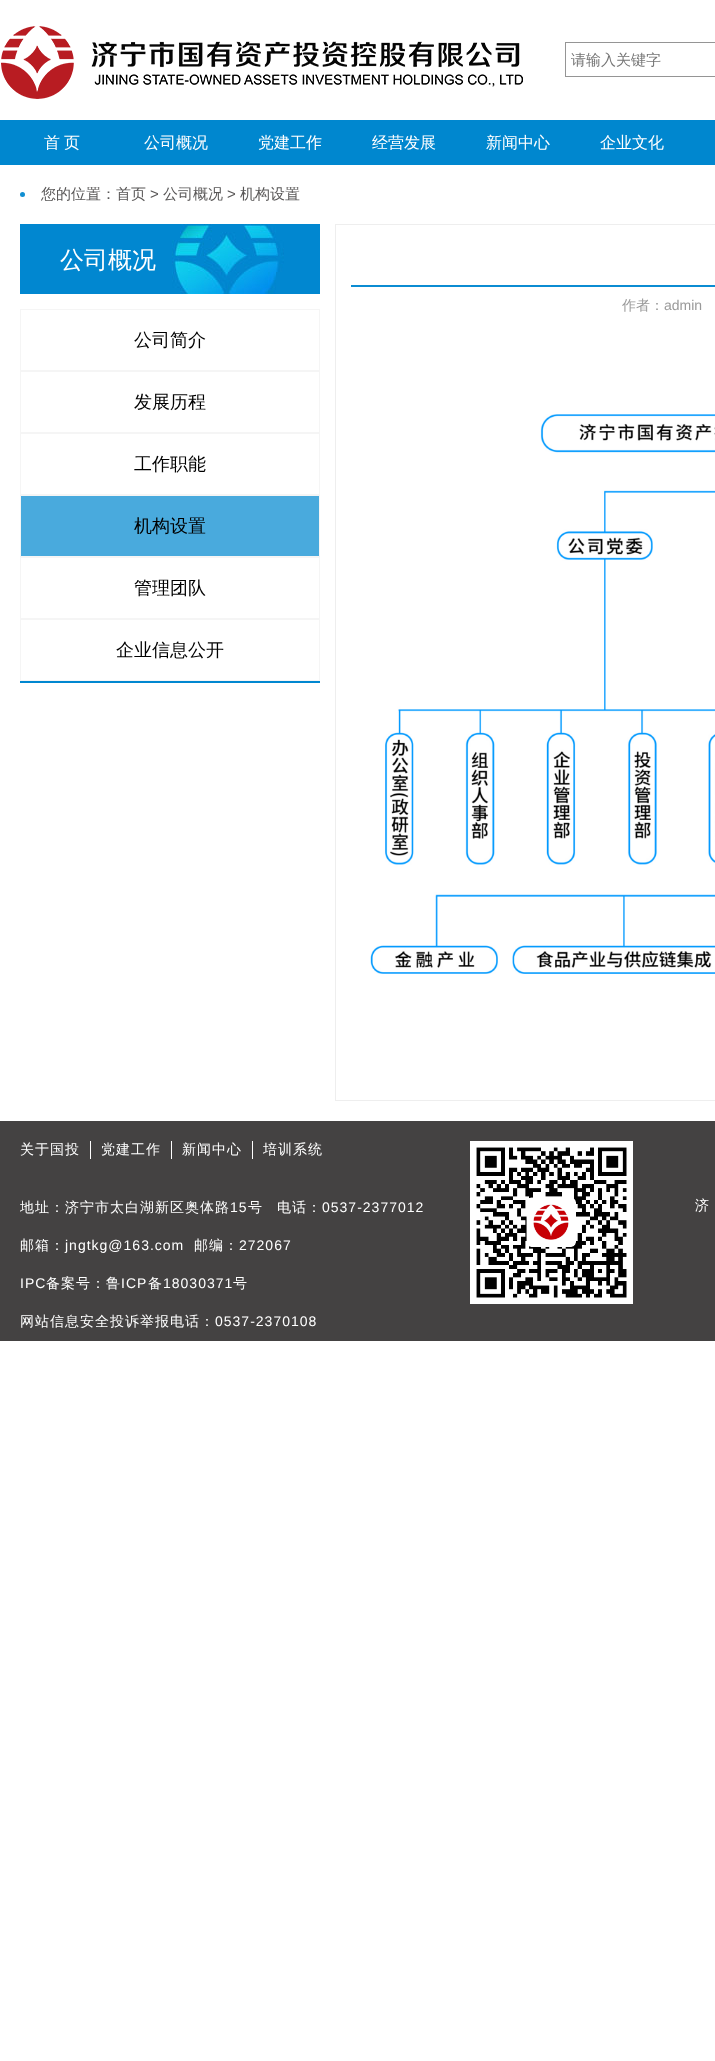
(async () => {
    const canvas = document.querySelector("canvas");
    canvas.width = 715;
    canvas.height = 2061;
    const context = canvas.getContext("2d");
    context.miterLimit = 4;
    context.fontKerning = "normal";
    function write(s, x, y, font, color) {
        context.font = font;
        context.fillStyle = color;
        context.fillText(s, x, y);
    }
    function block(x, y, w, h, color) {
        context.fillStyle = color;
        context.fillRect(x, y, w, h);
    }
    async function photo(src, x, y, w, h) {
        const img = new Image();
        img.src = src;
        await img.decode();
        context.drawImage(img, x, y, w, h);
    }

    block(0, 0, 715, 2061, "rgb(255, 255, 255)");
    await photo("media/1.png", 1, 26, 522, 73);
    context.strokeStyle = "rgb(149, 149, 149)";
    context.strokeRect(565.5, 42.5, 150, 34);
    write("请输入关键字", 571, 65, "500 15px WenQuanYi Zen Hei", "rgb(117, 117, 117)");
    block(0, 120, 715, 45, "rgb(0, 135, 207)");
    write("首", 44, 148, "500 16px WenQuanYi Zen Hei", "rgb(255, 255, 255)");
    write("页", 64, 148, "500 16px WenQuanYi Zen Hei", "rgb(255, 255, 255)");
    write("公司概况", 144, 148, "500 16px WenQuanYi Zen Hei", "rgb(255, 255, 255)");
    write("党建工作", 258, 148, "500 16px WenQuanYi Zen Hei", "rgb(255, 255, 255)");
    write("经营发展", 372, 148, "500 16px WenQuanYi Zen Hei", "rgb(255, 255, 255)");
    write("新闻中心", 486, 148, "500 16px WenQuanYi Zen Hei", "rgb(255, 255, 255)");
    write("企业文化", 600, 148, "500 16px WenQuanYi Zen Hei", "rgb(255, 255, 255)");
    context.fillStyle = "rgb(17, 143, 210)";
    context.beginPath();
    context.arc(22.5, 194.5, 2.5, 0, Math.PI * 2);
    context.fill();
    write("您的位置：首页", 41, 199, "500 15px WenQuanYi Zen Hei", "rgb(89, 87, 87)");
    write(">", 150, 199, "15px Liberation Sans", "rgb(89, 87, 87)");
    write("公司概况", 163, 199, "500 15px WenQuanYi Zen Hei", "rgb(89, 87, 87)");
    write(">", 227, 199, "15px Liberation Sans", "rgb(89, 87, 87)");
    write("机构设置", 240, 199, "500 15px WenQuanYi Zen Hei", "rgb(89, 87, 87)");
    await photo("media/2.png", 20, 224, 300, 70);
    write("公司概况", 60, 268, "500 24px WenQuanYi Zen Hei", "rgb(255, 255, 255)");
    block(20, 681, 300, 2, "rgb(0, 135, 208)");
    context.strokeStyle = "rgb(245, 245, 245)";
    context.strokeRect(20.5, 309.5, 299, 61);
    write("公司简介", 134, 346, "500 18px WenQuanYi Zen Hei", "rgb(0, 0, 0)");
    context.strokeRect(20.5, 371.5, 299, 61);
    write("发展历程", 134, 408, "500 18px WenQuanYi Zen Hei", "rgb(0, 0, 0)");
    context.strokeRect(20.5, 433.5, 299, 61);
    write("工作职能", 134, 470, "500 18px WenQuanYi Zen Hei", "rgb(0, 0, 0)");
    context.fillStyle = "rgb(73, 170, 221)";
    context.beginPath();
    context.rect(20.5, 495.5, 299, 61);
    context.fill();
    context.stroke();
    write("机构设置", 134, 532, "500 18px WenQuanYi Zen Hei", "rgb(0, 0, 0)");
    context.strokeRect(20.5, 557.5, 299, 61);
    write("管理团队", 134, 594, "500 18px WenQuanYi Zen Hei", "rgb(0, 0, 0)");
    context.strokeRect(20.5, 619.5, 299, 61);
    write("企业信息公开", 116, 656, "500 18px WenQuanYi Zen Hei", "rgb(0, 0, 0)");
    context.strokeStyle = "rgb(238, 238, 238)";
    context.strokeRect(335.5, 224.5, 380, 876);
    block(351, 285, 364, 2, "rgb(11, 140, 210)");
    write("作者：", 622, 310, "500 14px WenQuanYi Zen Hei", "rgb(153, 153, 153)");
    write("admin", 664, 310, "14px Liberation Sans", "rgb(153, 153, 153)");
    await photo("media/3.png", 370, 414, 345, 560);
    block(0, 1121, 715, 220, "rgb(68, 66, 66)");
    block(90, 1141, 1, 18, "rgb(255, 255, 255)");
    context.letterSpacing = "1px";
    write("关于国投", 20, 1154, "500 14px WenQuanYi Zen Hei", "rgb(255, 255, 255)");
    block(171, 1141, 1, 18, "rgb(255, 255, 255)");
    write("党建工作", 101, 1154, "500 14px WenQuanYi Zen Hei", "rgb(255, 255, 255)");
    block(252, 1141, 1, 18, "rgb(255, 255, 255)");
    write("新闻中心", 182, 1154, "500 14px WenQuanYi Zen Hei", "rgb(255, 255, 255)");
    write("培训系统", 263, 1154, "500 14px WenQuanYi Zen Hei", "rgb(255, 255, 255)");
    write("地址：济宁市太白湖新区奥体路", 20, 1212, "500 14px WenQuanYi Zen Hei", "rgb(255, 255, 255)");
    write("15", 230, 1212, "14px Liberation Sans", "rgb(255, 255, 255)");
    write("号", 248, 1212, "500 14px WenQuanYi Zen Hei", "rgb(255, 255, 255)");
    write("电话：", 277, 1212, "500 14px WenQuanYi Zen Hei", "rgb(255, 255, 255)");
    write("0537-2377012", 322, 1212, "14px Liberation Sans", "rgb(255, 255, 255)");
    write("邮箱：", 20, 1250, "500 14px WenQuanYi Zen Hei", "rgb(255, 255, 255)");
    write("jngtkg@163.com", 65, 1250, "14px Liberation Sans", "rgb(255, 255, 255)");
    write("邮编：", 194, 1250, "500 14px WenQuanYi Zen Hei", "rgb(255, 255, 255)");
    write("272067", 239, 1250, "14px Liberation Sans", "rgb(255, 255, 255)");
    write("IPC", 20, 1288, "14px Liberation Sans", "rgb(255, 255, 255)");
    write("备案号：鲁", 46, 1288, "500 14px WenQuanYi Zen Hei", "rgb(255, 255, 255)");
    write("ICP", 121, 1288, "14px Liberation Sans", "rgb(255, 255, 255)");
    write("备", 148, 1288, "500 14px WenQuanYi Zen Hei", "rgb(255, 255, 255)");
    write("18030371", 163, 1288, "14px Liberation Sans", "rgb(255, 255, 255)");
    write("号", 233, 1288, "500 14px WenQuanYi Zen Hei", "rgb(255, 255, 255)");
    write("网站信息安全投诉举报电话：", 20, 1326, "500 14px WenQuanYi Zen Hei", "rgb(255, 255, 255)");
    write("0537-2370108", 215, 1326, "14px Liberation Sans", "rgb(255, 255, 255)");
    await photo("media/4.png", 470, 1141, 163, 163);
    write("济", 695, 1210, "500 14px WenQuanYi Zen Hei", "rgb(255, 255, 255)");
})();
